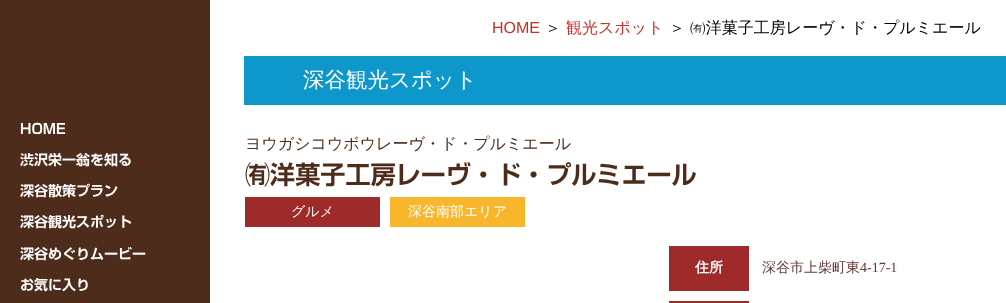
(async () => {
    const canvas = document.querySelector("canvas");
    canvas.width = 1006;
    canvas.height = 303;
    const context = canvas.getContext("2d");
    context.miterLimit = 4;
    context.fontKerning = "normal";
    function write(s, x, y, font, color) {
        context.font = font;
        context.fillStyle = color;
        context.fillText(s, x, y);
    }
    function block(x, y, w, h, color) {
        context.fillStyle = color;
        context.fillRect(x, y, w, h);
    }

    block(0, 0, 1006, 303, "rgb(255, 255, 255)");
    write("HOME", 492, 33, "16px Liberation Sans", "rgb(203, 46, 39)");
    write("＞", 545, 33, "500 16px WenQuanYi Zen Hei", "rgb(0, 0, 0)");
    write("観光スポット", 566, 33, "500 16px WenQuanYi Zen Hei", "rgb(203, 46, 39)");
    write("＞ ㈲洋菓子工房レーヴ・ド・プルミエール", 669, 33, "500 16px WenQuanYi Zen Hei", "rgb(0, 0, 0)");
    block(244, 56, 762, 49, "rgb(13, 151, 203)");
    write("深谷観光スポット", 303, 87, "500 21.5px WenQuanYi Zen Hei", "rgb(255, 255, 255)");
    block(0, 0, 210, 303, "rgb(77, 44, 27)");
    write("HOME", 20, 134, "bold 14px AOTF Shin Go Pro", "rgb(255, 255, 255)");
    write("渋沢栄一翁を知る", 20, 165, "bold 14px AOTF Shin Go Pro", "rgb(255, 255, 255)");
    write("深谷散策プラン", 20, 196, "bold 14px AOTF Shin Go Pro", "rgb(255, 255, 255)");
    write("深谷観光スポット", 20, 227, "bold 14px AOTF Shin Go Pro", "rgb(255, 255, 255)");
    write("深谷めぐりムービー", 20, 259, "bold 14px AOTF Shin Go Pro", "rgb(255, 255, 255)");
    write("お気に入り", 20, 290, "bold 14px AOTF Shin Go Pro", "rgb(255, 255, 255)");
    write("ヨウガシコウボウレーヴ・ド・プルミエール", 245, 149, "500 16px WenQuanYi Zen Hei", "rgb(77, 44, 27)");
    write("㈲洋菓子工房レーヴ・ド・プルミエール", 245, 184, "bold 25.1px AOTF Shin Go Pro", "rgb(77, 44, 27)");
    block(245, 197, 135, 30, "rgb(158, 42, 42)");
    write("グルメ", 291, 216, "500 14px WenQuanYi Zen Hei", "rgb(255, 255, 255)");
    block(390, 197, 135, 30, "rgb(248, 182, 45)");
    write("深谷南部エリア", 408, 216, "500 14px WenQuanYi Zen Hei", "rgb(255, 255, 255)");
    block(669, 246, 80, 45, "rgb(158, 42, 42)");
    write("住所", 695, 272, "bold 14px WenQuanYi Zen Hei", "rgb(255, 255, 255)");
    write("深谷市上柴町東", 762, 272, "500 14px WenQuanYi Zen Hei", "rgb(99, 56, 54)");
    write("4-17-1", 860, 272, "14px Liberation Serif", "rgb(99, 56, 54)");
    block(669, 301, 80, 2, "rgb(158, 42, 42)");
})();
